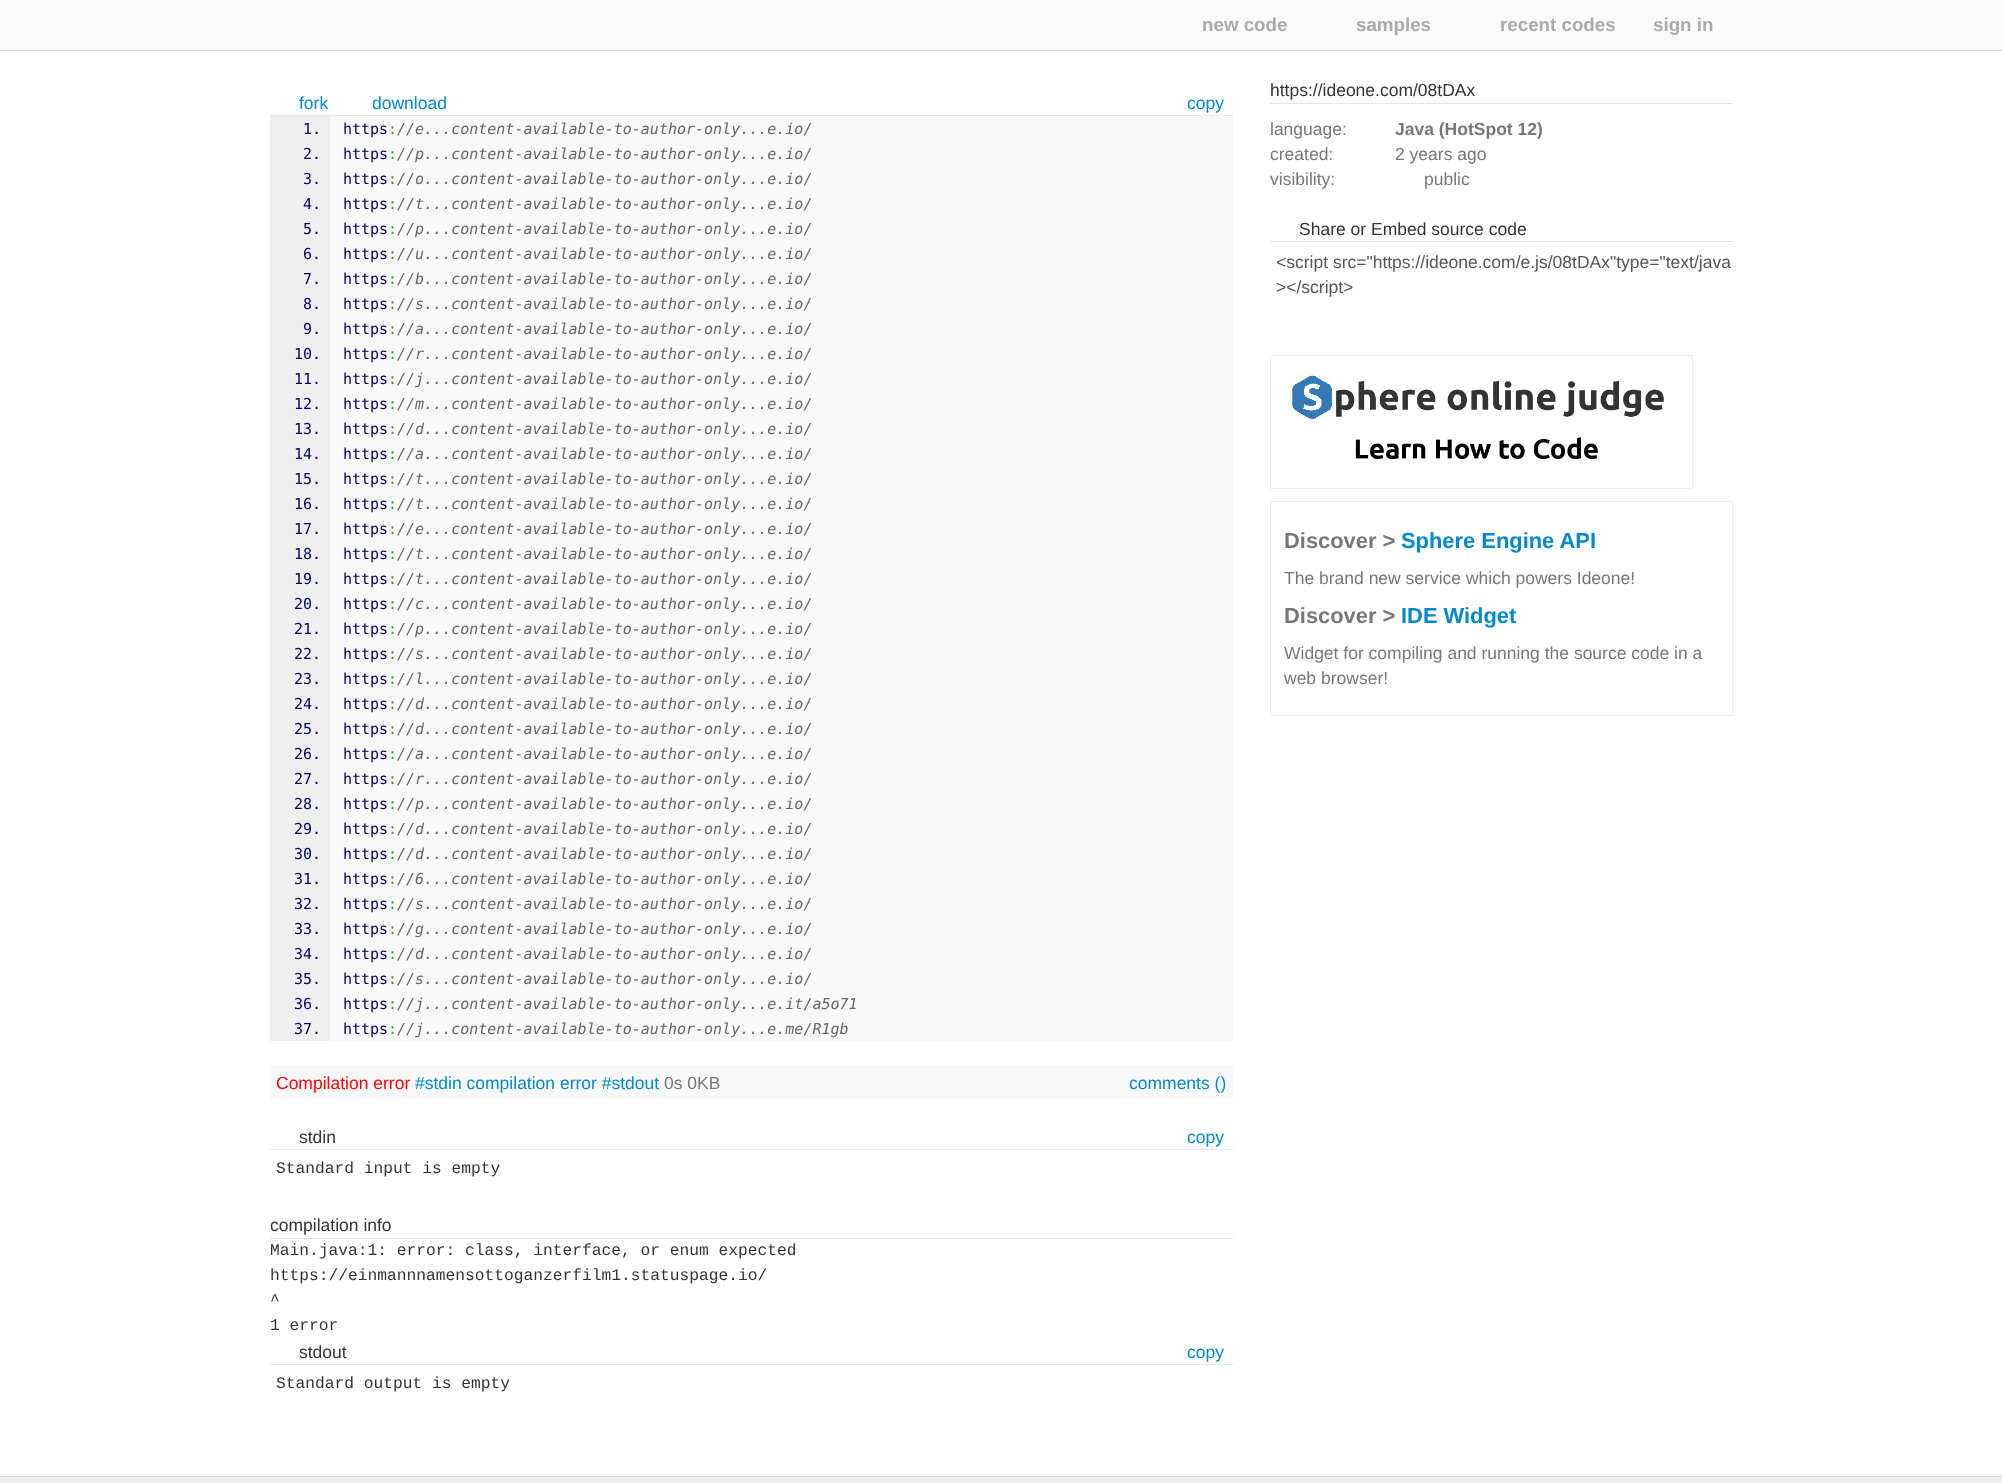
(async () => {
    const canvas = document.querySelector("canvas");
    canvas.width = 2002;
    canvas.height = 1483;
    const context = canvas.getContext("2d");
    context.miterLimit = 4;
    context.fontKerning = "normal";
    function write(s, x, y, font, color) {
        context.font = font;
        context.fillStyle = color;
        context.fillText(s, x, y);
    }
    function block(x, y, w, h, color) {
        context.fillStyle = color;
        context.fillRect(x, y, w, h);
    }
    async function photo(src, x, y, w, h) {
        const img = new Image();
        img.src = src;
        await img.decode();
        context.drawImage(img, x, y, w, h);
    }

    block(0, 0, 2002, 1483, "rgb(255, 255, 255)");
    block(0, 0, 2002, 50, "rgb(250, 250, 250)");
    block(0, 50, 2002, 1, "rgb(212, 212, 212)");
    write("new code", 1202, 31, "bold 18.75px Liberation Sans", "rgb(170, 170, 170)");
    write("samples", 1356, 31, "bold 18.75px Liberation Sans", "rgb(170, 170, 170)");
    write("recent codes", 1500, 31, "bold 18.75px Liberation Sans", "rgb(170, 170, 170)");
    write("sign in", 1653, 31, "bold 18.75px Liberation Sans", "rgb(170, 170, 170)");
    block(270, 115, 963, 1, "rgb(229, 229, 229)");
    write("fork", 299, 109, "17.5px Liberation Sans", "rgb(0, 136, 204)");
    write("download", 372, 109, "17.5px Liberation Sans", "rgb(0, 136, 204)");
    write("copy", 1187, 109, "17.5px Liberation Sans", "rgb(0, 136, 204)");
    block(270, 116, 60, 925, "rgb(239, 239, 239)");
    block(330, 116, 903, 925, "rgb(248, 248, 248)");
    write("1.", 303, 134, "15px DejaVu Sans Mono", "rgb(0, 0, 102)");
    write("https", 343, 134, "15px DejaVu Sans Mono", "rgb(0, 0, 102)");
    write(":", 388, 134, "15px DejaVu Sans Mono", "rgb(51, 153, 51)");
    write("//e...content-available-to-author-only...e.io/", 397, 134, "italic 15px DejaVu Sans Mono", "rgb(102, 102, 102)");
    write("2.", 303, 159, "15px DejaVu Sans Mono", "rgb(0, 0, 102)");
    write("https", 343, 159, "15px DejaVu Sans Mono", "rgb(0, 0, 102)");
    write(":", 388, 159, "15px DejaVu Sans Mono", "rgb(51, 153, 51)");
    write("//p...content-available-to-author-only...e.io/", 397, 159, "italic 15px DejaVu Sans Mono", "rgb(102, 102, 102)");
    write("3.", 303, 184, "15px DejaVu Sans Mono", "rgb(0, 0, 102)");
    write("https", 343, 184, "15px DejaVu Sans Mono", "rgb(0, 0, 102)");
    write(":", 388, 184, "15px DejaVu Sans Mono", "rgb(51, 153, 51)");
    write("//o...content-available-to-author-only...e.io/", 397, 184, "italic 15px DejaVu Sans Mono", "rgb(102, 102, 102)");
    write("4.", 303, 209, "15px DejaVu Sans Mono", "rgb(0, 0, 102)");
    write("https", 343, 209, "15px DejaVu Sans Mono", "rgb(0, 0, 102)");
    write(":", 388, 209, "15px DejaVu Sans Mono", "rgb(51, 153, 51)");
    write("//t...content-available-to-author-only...e.io/", 397, 209, "italic 15px DejaVu Sans Mono", "rgb(102, 102, 102)");
    write("5.", 303, 234, "15px DejaVu Sans Mono", "rgb(0, 0, 102)");
    write("https", 343, 234, "15px DejaVu Sans Mono", "rgb(0, 0, 102)");
    write(":", 388, 234, "15px DejaVu Sans Mono", "rgb(51, 153, 51)");
    write("//p...content-available-to-author-only...e.io/", 397, 234, "italic 15px DejaVu Sans Mono", "rgb(102, 102, 102)");
    write("6.", 303, 259, "15px DejaVu Sans Mono", "rgb(0, 0, 102)");
    write("https", 343, 259, "15px DejaVu Sans Mono", "rgb(0, 0, 102)");
    write(":", 388, 259, "15px DejaVu Sans Mono", "rgb(51, 153, 51)");
    write("//u...content-available-to-author-only...e.io/", 397, 259, "italic 15px DejaVu Sans Mono", "rgb(102, 102, 102)");
    write("7.", 303, 284, "15px DejaVu Sans Mono", "rgb(0, 0, 102)");
    write("https", 343, 284, "15px DejaVu Sans Mono", "rgb(0, 0, 102)");
    write(":", 388, 284, "15px DejaVu Sans Mono", "rgb(51, 153, 51)");
    write("//b...content-available-to-author-only...e.io/", 397, 284, "italic 15px DejaVu Sans Mono", "rgb(102, 102, 102)");
    write("8.", 303, 309, "15px DejaVu Sans Mono", "rgb(0, 0, 102)");
    write("https", 343, 309, "15px DejaVu Sans Mono", "rgb(0, 0, 102)");
    write(":", 388, 309, "15px DejaVu Sans Mono", "rgb(51, 153, 51)");
    write("//s...content-available-to-author-only...e.io/", 397, 309, "italic 15px DejaVu Sans Mono", "rgb(102, 102, 102)");
    write("9.", 303, 334, "15px DejaVu Sans Mono", "rgb(0, 0, 102)");
    write("https", 343, 334, "15px DejaVu Sans Mono", "rgb(0, 0, 102)");
    write(":", 388, 334, "15px DejaVu Sans Mono", "rgb(51, 153, 51)");
    write("//a...content-available-to-author-only...e.io/", 397, 334, "italic 15px DejaVu Sans Mono", "rgb(102, 102, 102)");
    write("10.", 294, 359, "15px DejaVu Sans Mono", "rgb(0, 0, 102)");
    write("https", 343, 359, "15px DejaVu Sans Mono", "rgb(0, 0, 102)");
    write(":", 388, 359, "15px DejaVu Sans Mono", "rgb(51, 153, 51)");
    write("//r...content-available-to-author-only...e.io/", 397, 359, "italic 15px DejaVu Sans Mono", "rgb(102, 102, 102)");
    write("11.", 294, 384, "15px DejaVu Sans Mono", "rgb(0, 0, 102)");
    write("https", 343, 384, "15px DejaVu Sans Mono", "rgb(0, 0, 102)");
    write(":", 388, 384, "15px DejaVu Sans Mono", "rgb(51, 153, 51)");
    write("//j...content-available-to-author-only...e.io/", 397, 384, "italic 15px DejaVu Sans Mono", "rgb(102, 102, 102)");
    write("12.", 294, 409, "15px DejaVu Sans Mono", "rgb(0, 0, 102)");
    write("https", 343, 409, "15px DejaVu Sans Mono", "rgb(0, 0, 102)");
    write(":", 388, 409, "15px DejaVu Sans Mono", "rgb(51, 153, 51)");
    write("//m...content-available-to-author-only...e.io/", 397, 409, "italic 15px DejaVu Sans Mono", "rgb(102, 102, 102)");
    write("13.", 294, 434, "15px DejaVu Sans Mono", "rgb(0, 0, 102)");
    write("https", 343, 434, "15px DejaVu Sans Mono", "rgb(0, 0, 102)");
    write(":", 388, 434, "15px DejaVu Sans Mono", "rgb(51, 153, 51)");
    write("//d...content-available-to-author-only...e.io/", 397, 434, "italic 15px DejaVu Sans Mono", "rgb(102, 102, 102)");
    write("14.", 294, 459, "15px DejaVu Sans Mono", "rgb(0, 0, 102)");
    write("https", 343, 459, "15px DejaVu Sans Mono", "rgb(0, 0, 102)");
    write(":", 388, 459, "15px DejaVu Sans Mono", "rgb(51, 153, 51)");
    write("//a...content-available-to-author-only...e.io/", 397, 459, "italic 15px DejaVu Sans Mono", "rgb(102, 102, 102)");
    write("15.", 294, 484, "15px DejaVu Sans Mono", "rgb(0, 0, 102)");
    write("https", 343, 484, "15px DejaVu Sans Mono", "rgb(0, 0, 102)");
    write(":", 388, 484, "15px DejaVu Sans Mono", "rgb(51, 153, 51)");
    write("//t...content-available-to-author-only...e.io/", 397, 484, "italic 15px DejaVu Sans Mono", "rgb(102, 102, 102)");
    write("16.", 294, 509, "15px DejaVu Sans Mono", "rgb(0, 0, 102)");
    write("https", 343, 509, "15px DejaVu Sans Mono", "rgb(0, 0, 102)");
    write(":", 388, 509, "15px DejaVu Sans Mono", "rgb(51, 153, 51)");
    write("//t...content-available-to-author-only...e.io/", 397, 509, "italic 15px DejaVu Sans Mono", "rgb(102, 102, 102)");
    write("17.", 294, 534, "15px DejaVu Sans Mono", "rgb(0, 0, 102)");
    write("https", 343, 534, "15px DejaVu Sans Mono", "rgb(0, 0, 102)");
    write(":", 388, 534, "15px DejaVu Sans Mono", "rgb(51, 153, 51)");
    write("//e...content-available-to-author-only...e.io/", 397, 534, "italic 15px DejaVu Sans Mono", "rgb(102, 102, 102)");
    write("18.", 294, 559, "15px DejaVu Sans Mono", "rgb(0, 0, 102)");
    write("https", 343, 559, "15px DejaVu Sans Mono", "rgb(0, 0, 102)");
    write(":", 388, 559, "15px DejaVu Sans Mono", "rgb(51, 153, 51)");
    write("//t...content-available-to-author-only...e.io/", 397, 559, "italic 15px DejaVu Sans Mono", "rgb(102, 102, 102)");
    write("19.", 294, 584, "15px DejaVu Sans Mono", "rgb(0, 0, 102)");
    write("https", 343, 584, "15px DejaVu Sans Mono", "rgb(0, 0, 102)");
    write(":", 388, 584, "15px DejaVu Sans Mono", "rgb(51, 153, 51)");
    write("//t...content-available-to-author-only...e.io/", 397, 584, "italic 15px DejaVu Sans Mono", "rgb(102, 102, 102)");
    write("20.", 294, 609, "15px DejaVu Sans Mono", "rgb(0, 0, 102)");
    write("https", 343, 609, "15px DejaVu Sans Mono", "rgb(0, 0, 102)");
    write(":", 388, 609, "15px DejaVu Sans Mono", "rgb(51, 153, 51)");
    write("//c...content-available-to-author-only...e.io/", 397, 609, "italic 15px DejaVu Sans Mono", "rgb(102, 102, 102)");
    write("21.", 294, 634, "15px DejaVu Sans Mono", "rgb(0, 0, 102)");
    write("https", 343, 634, "15px DejaVu Sans Mono", "rgb(0, 0, 102)");
    write(":", 388, 634, "15px DejaVu Sans Mono", "rgb(51, 153, 51)");
    write("//p...content-available-to-author-only...e.io/", 397, 634, "italic 15px DejaVu Sans Mono", "rgb(102, 102, 102)");
    write("22.", 294, 659, "15px DejaVu Sans Mono", "rgb(0, 0, 102)");
    write("https", 343, 659, "15px DejaVu Sans Mono", "rgb(0, 0, 102)");
    write(":", 388, 659, "15px DejaVu Sans Mono", "rgb(51, 153, 51)");
    write("//s...content-available-to-author-only...e.io/", 397, 659, "italic 15px DejaVu Sans Mono", "rgb(102, 102, 102)");
    write("23.", 294, 684, "15px DejaVu Sans Mono", "rgb(0, 0, 102)");
    write("https", 343, 684, "15px DejaVu Sans Mono", "rgb(0, 0, 102)");
    write(":", 388, 684, "15px DejaVu Sans Mono", "rgb(51, 153, 51)");
    write("//l...content-available-to-author-only...e.io/", 397, 684, "italic 15px DejaVu Sans Mono", "rgb(102, 102, 102)");
    write("24.", 294, 709, "15px DejaVu Sans Mono", "rgb(0, 0, 102)");
    write("https", 343, 709, "15px DejaVu Sans Mono", "rgb(0, 0, 102)");
    write(":", 388, 709, "15px DejaVu Sans Mono", "rgb(51, 153, 51)");
    write("//d...content-available-to-author-only...e.io/", 397, 709, "italic 15px DejaVu Sans Mono", "rgb(102, 102, 102)");
    write("25.", 294, 734, "15px DejaVu Sans Mono", "rgb(0, 0, 102)");
    write("https", 343, 734, "15px DejaVu Sans Mono", "rgb(0, 0, 102)");
    write(":", 388, 734, "15px DejaVu Sans Mono", "rgb(51, 153, 51)");
    write("//d...content-available-to-author-only...e.io/", 397, 734, "italic 15px DejaVu Sans Mono", "rgb(102, 102, 102)");
    write("26.", 294, 759, "15px DejaVu Sans Mono", "rgb(0, 0, 102)");
    write("https", 343, 759, "15px DejaVu Sans Mono", "rgb(0, 0, 102)");
    write(":", 388, 759, "15px DejaVu Sans Mono", "rgb(51, 153, 51)");
    write("//a...content-available-to-author-only...e.io/", 397, 759, "italic 15px DejaVu Sans Mono", "rgb(102, 102, 102)");
    write("27.", 294, 784, "15px DejaVu Sans Mono", "rgb(0, 0, 102)");
    write("https", 343, 784, "15px DejaVu Sans Mono", "rgb(0, 0, 102)");
    write(":", 388, 784, "15px DejaVu Sans Mono", "rgb(51, 153, 51)");
    write("//r...content-available-to-author-only...e.io/", 397, 784, "italic 15px DejaVu Sans Mono", "rgb(102, 102, 102)");
    write("28.", 294, 809, "15px DejaVu Sans Mono", "rgb(0, 0, 102)");
    write("https", 343, 809, "15px DejaVu Sans Mono", "rgb(0, 0, 102)");
    write(":", 388, 809, "15px DejaVu Sans Mono", "rgb(51, 153, 51)");
    write("//p...content-available-to-author-only...e.io/", 397, 809, "italic 15px DejaVu Sans Mono", "rgb(102, 102, 102)");
    write("29.", 294, 834, "15px DejaVu Sans Mono", "rgb(0, 0, 102)");
    write("https", 343, 834, "15px DejaVu Sans Mono", "rgb(0, 0, 102)");
    write(":", 388, 834, "15px DejaVu Sans Mono", "rgb(51, 153, 51)");
    write("//d...content-available-to-author-only...e.io/", 397, 834, "italic 15px DejaVu Sans Mono", "rgb(102, 102, 102)");
    write("30.", 294, 859, "15px DejaVu Sans Mono", "rgb(0, 0, 102)");
    write("https", 343, 859, "15px DejaVu Sans Mono", "rgb(0, 0, 102)");
    write(":", 388, 859, "15px DejaVu Sans Mono", "rgb(51, 153, 51)");
    write("//d...content-available-to-author-only...e.io/", 397, 859, "italic 15px DejaVu Sans Mono", "rgb(102, 102, 102)");
    write("31.", 294, 884, "15px DejaVu Sans Mono", "rgb(0, 0, 102)");
    write("https", 343, 884, "15px DejaVu Sans Mono", "rgb(0, 0, 102)");
    write(":", 388, 884, "15px DejaVu Sans Mono", "rgb(51, 153, 51)");
    write("//6...content-available-to-author-only...e.io/", 397, 884, "italic 15px DejaVu Sans Mono", "rgb(102, 102, 102)");
    write("32.", 294, 909, "15px DejaVu Sans Mono", "rgb(0, 0, 102)");
    write("https", 343, 909, "15px DejaVu Sans Mono", "rgb(0, 0, 102)");
    write(":", 388, 909, "15px DejaVu Sans Mono", "rgb(51, 153, 51)");
    write("//s...content-available-to-author-only...e.io/", 397, 909, "italic 15px DejaVu Sans Mono", "rgb(102, 102, 102)");
    write("33.", 294, 934, "15px DejaVu Sans Mono", "rgb(0, 0, 102)");
    write("https", 343, 934, "15px DejaVu Sans Mono", "rgb(0, 0, 102)");
    write(":", 388, 934, "15px DejaVu Sans Mono", "rgb(51, 153, 51)");
    write("//g...content-available-to-author-only...e.io/", 397, 934, "italic 15px DejaVu Sans Mono", "rgb(102, 102, 102)");
    write("34.", 294, 959, "15px DejaVu Sans Mono", "rgb(0, 0, 102)");
    write("https", 343, 959, "15px DejaVu Sans Mono", "rgb(0, 0, 102)");
    write(":", 388, 959, "15px DejaVu Sans Mono", "rgb(51, 153, 51)");
    write("//d...content-available-to-author-only...e.io/", 397, 959, "italic 15px DejaVu Sans Mono", "rgb(102, 102, 102)");
    write("35.", 294, 984, "15px DejaVu Sans Mono", "rgb(0, 0, 102)");
    write("https", 343, 984, "15px DejaVu Sans Mono", "rgb(0, 0, 102)");
    write(":", 388, 984, "15px DejaVu Sans Mono", "rgb(51, 153, 51)");
    write("//s...content-available-to-author-only...e.io/", 397, 984, "italic 15px DejaVu Sans Mono", "rgb(102, 102, 102)");
    write("36.", 294, 1009, "15px DejaVu Sans Mono", "rgb(0, 0, 102)");
    write("https", 343, 1009, "15px DejaVu Sans Mono", "rgb(0, 0, 102)");
    write(":", 388, 1009, "15px DejaVu Sans Mono", "rgb(51, 153, 51)");
    write("//j...content-available-to-author-only...e.it/a5o71", 397, 1009, "italic 15px DejaVu Sans Mono", "rgb(102, 102, 102)");
    write("37.", 294, 1034, "15px DejaVu Sans Mono", "rgb(0, 0, 102)");
    write("https", 343, 1034, "15px DejaVu Sans Mono", "rgb(0, 0, 102)");
    write(":", 388, 1034, "15px DejaVu Sans Mono", "rgb(51, 153, 51)");
    write("//j...content-available-to-author-only...e.me/R1gb", 397, 1034, "italic 15px DejaVu Sans Mono", "rgb(102, 102, 102)");
    block(270, 1066, 963, 33, "rgb(248, 248, 248)");
    write("Compilation error", 276, 1089, "17.5px Liberation Sans", "rgb(255, 0, 0)");
    write("#stdin compilation error #stdout", 415, 1089, "17.5px Liberation Sans", "rgb(0, 136, 204)");
    write("0s 0KB", 664, 1089, "17.5px Liberation Sans", "rgb(119, 119, 119)");
    write("comments ()", 1129, 1089, "17.5px Liberation Sans", "rgb(0, 136, 204)");
    block(270, 1149, 963, 1, "rgb(229, 229, 229)");
    write("stdin", 299, 1143, "17.5px Liberation Sans", "rgb(51, 51, 51)");
    write("copy", 1187, 1143, "17.5px Liberation Sans", "rgb(0, 136, 204)");
    write("Standard input is empty", 276, 1173, "16.25px Liberation Mono", "rgb(51, 51, 51)");
    block(270, 1238, 963, 1, "rgb(229, 229, 229)");
    write("compilation info", 270, 1231, "17.5px Liberation Sans", "rgb(51, 51, 51)");
    write("Main.java:1: error: class, interface, or enum expected", 270, 1255, "16.25px Liberation Mono", "rgb(51, 51, 51)");
    write("https://einmannnamensottoganzerfilm1.statuspage.io/", 270, 1280, "16.25px Liberation Mono", "rgb(51, 51, 51)");
    write("^", 270, 1305, "16.25px Liberation Mono", "rgb(51, 51, 51)");
    write("1 error", 270, 1330, "16.25px Liberation Mono", "rgb(51, 51, 51)");
    block(270, 1364, 963, 1, "rgb(229, 229, 229)");
    write("stdout", 299, 1358, "17.5px Liberation Sans", "rgb(51, 51, 51)");
    write("copy", 1187, 1358, "17.5px Liberation Sans", "rgb(0, 136, 204)");
    write("Standard output is empty", 276, 1388, "16.25px Liberation Mono", "rgb(51, 51, 51)");
    block(1270, 103, 463, 1, "rgb(229, 229, 229)");
    write("https://ideone.com/08tDAx", 1270, 96, "17.5px Liberation Sans", "rgb(51, 51, 51)");
    write("language:", 1270, 135, "17.5px Liberation Sans", "rgb(119, 119, 119)");
    write("Java (HotSpot 12)", 1395, 135, "bold 17.5px Liberation Sans", "rgb(119, 119, 119)");
    write("created:", 1270, 160, "17.5px Liberation Sans", "rgb(119, 119, 119)");
    write("2 years ago", 1395, 160, "17.5px Liberation Sans", "rgb(119, 119, 119)");
    write("visibility:", 1270, 185, "17.5px Liberation Sans", "rgb(119, 119, 119)");
    write("public", 1424, 185, "17.5px Liberation Sans", "rgb(119, 119, 119)");
    block(1270, 241, 463, 1, "rgb(229, 229, 229)");
    write("Share or Embed source code", 1299, 235, "17.5px Liberation Sans", "rgb(51, 51, 51)");
    write("<script src=\"https://ideone.com/e.js/08tDAx\"type=\"text/java", 1276, 268, "17.5px Liberation Sans", "rgb(85, 85, 85)");
    write("><\/script>", 1276, 293, "17.5px Liberation Sans", "rgb(85, 85, 85)");
    context.strokeStyle = "rgb(238, 238, 238)";
    context.strokeRect(1270.5, 355.5, 422, 133);
    await photo("media/1.png", 1292, 375, 372, 84);
    context.strokeRect(1270.5, 501.5, 462, 214);
    write("Discover >", 1284, 548, "bold 21.9px Liberation Sans", "rgb(119, 119, 119)");
    write("Sphere Engine API", 1401, 548, "bold 21.9px Liberation Sans", "rgb(0, 136, 204)");
    write("The brand new service which powers Ideone!", 1284, 584, "17.5px Liberation Sans", "rgb(119, 119, 119)");
    write("Discover >", 1284, 623, "bold 21.9px Liberation Sans", "rgb(119, 119, 119)");
    write("IDE Widget", 1401, 623, "bold 21.9px Liberation Sans", "rgb(0, 136, 204)");
    write("Widget for compiling and running the source code in a", 1284, 659, "17.5px Liberation Sans", "rgb(119, 119, 119)");
    write("web browser!", 1284, 684, "17.5px Liberation Sans", "rgb(119, 119, 119)");
    block(0, 1477, 2002, 6, "rgb(238, 238, 238)");
    block(0, 1476, 2002, 1, "rgb(217, 217, 217)");
})();
